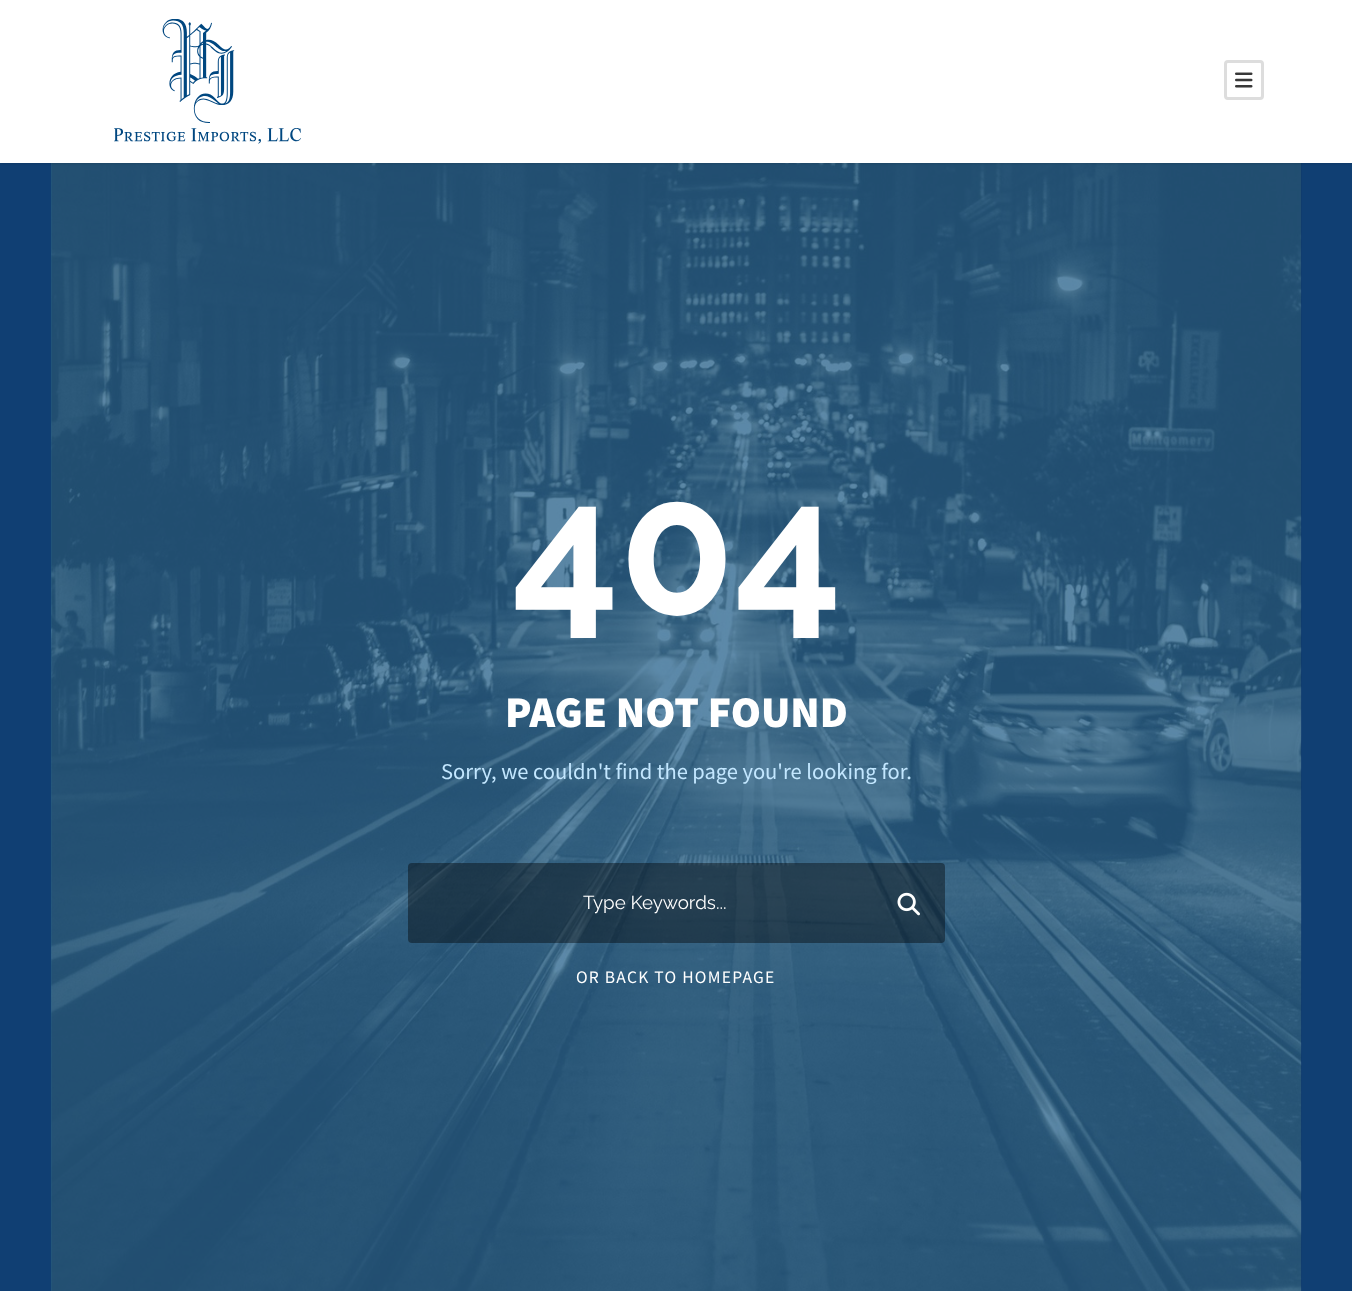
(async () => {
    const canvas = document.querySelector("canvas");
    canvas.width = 1352;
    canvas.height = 1291;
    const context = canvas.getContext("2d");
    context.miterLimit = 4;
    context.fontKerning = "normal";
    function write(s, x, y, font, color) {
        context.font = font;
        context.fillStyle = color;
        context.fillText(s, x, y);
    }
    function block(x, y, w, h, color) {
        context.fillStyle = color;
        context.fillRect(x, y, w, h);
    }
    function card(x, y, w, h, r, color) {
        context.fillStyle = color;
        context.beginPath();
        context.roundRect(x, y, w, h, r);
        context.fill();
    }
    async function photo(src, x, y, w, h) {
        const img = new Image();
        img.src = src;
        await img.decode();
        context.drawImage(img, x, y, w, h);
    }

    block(0, 0, 1352, 1291, "rgb(16, 63, 115)");
    block(51, 163, 1250, 1128, "rgb(35, 97, 142)");
    await photo("media/3.png", 51, 163, 1251, 1128);
    context.fillStyle = "rgba(0, 0, 0, 0.1)";
    context.filter = "blur(1px)";
    context.beginPath();
    context.rect(0, 1, 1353, 163);
    context.fill();
    context.filter = "none";
    block(0, 0, 1352, 163, "rgb(255, 255, 255)");
    await photo("media/1.png", 114, 19, 187, 125);
    context.beginPath();
    context.roundRect(1225.5, 61.5, 37, 37, 2.5);
    context.strokeStyle = "rgb(221, 221, 221)";
    context.lineWidth = 3;
    context.stroke();
    await photo("media/2.png", 1235, 72, 18, 16);
    write("404", 512, 614, "bold 188px Raleway", "rgb(255, 255, 255)");
    write("PAGE NOT FOUND", 505, 727, "900 43.75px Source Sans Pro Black", "rgb(255, 255, 255)");
    write("Sorry, we couldn't find the page you're looking for.", 441, 779, "22.5px Source Sans Pro", "rgb(195, 231, 255)");
    card(408, 863, 537, 80, 4, "rgba(0, 0, 0, 0.4)");
    write("Type Keywords...", 583, 909, "18.75px Raleway", "rgb(255, 255, 255)");
    await photo("media/4.png", 897, 892, 23, 24);
    context.letterSpacing = "1.25px";
    write("OR BACK TO HOMEPAGE", 576, 983, "17.5px Source Sans Pro", "rgb(255, 255, 255)");
})();
